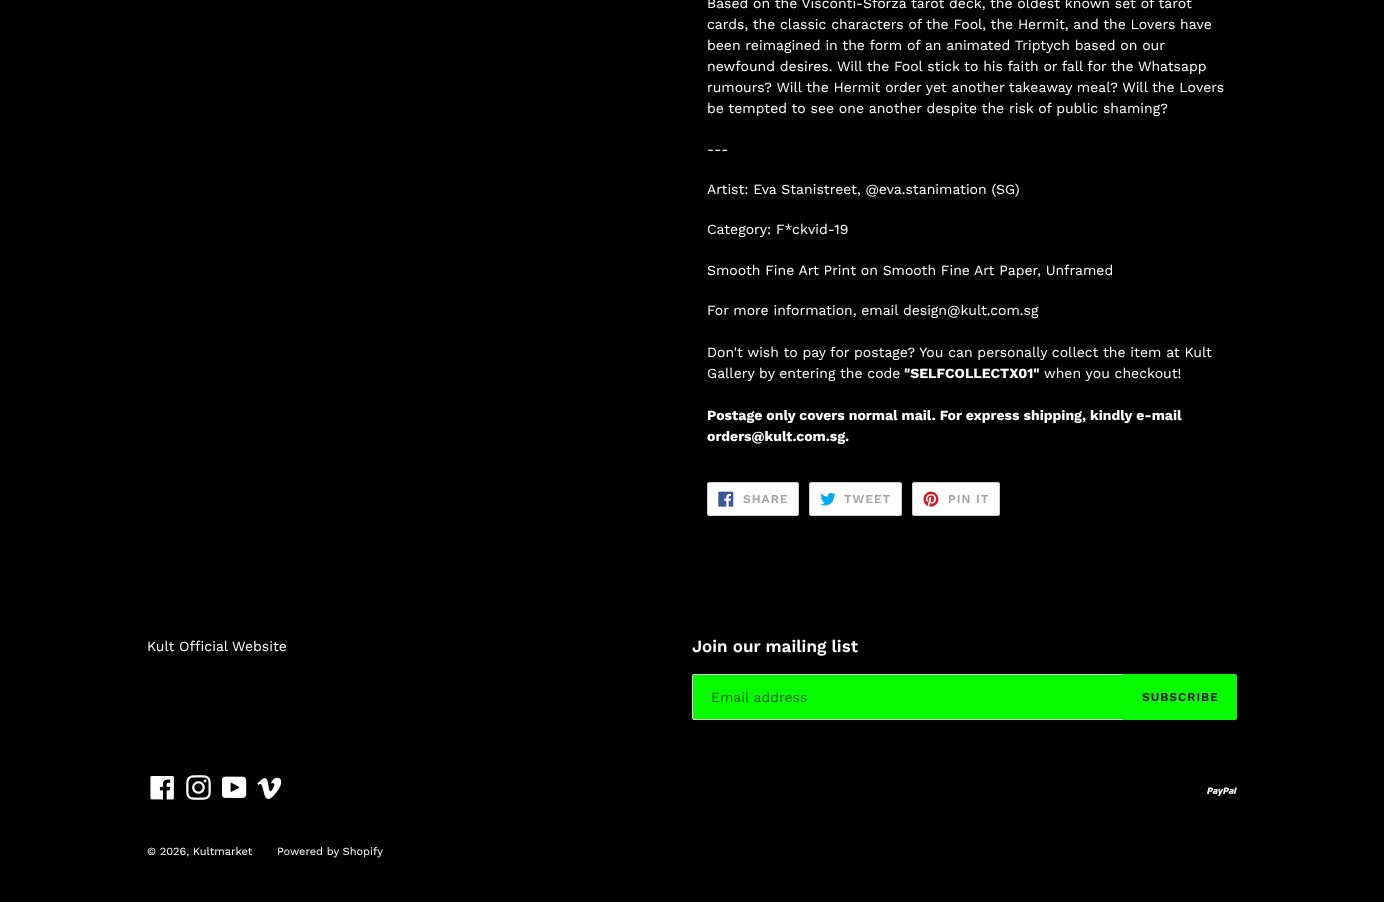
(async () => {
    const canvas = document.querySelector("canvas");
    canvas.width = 1384;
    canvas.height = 902;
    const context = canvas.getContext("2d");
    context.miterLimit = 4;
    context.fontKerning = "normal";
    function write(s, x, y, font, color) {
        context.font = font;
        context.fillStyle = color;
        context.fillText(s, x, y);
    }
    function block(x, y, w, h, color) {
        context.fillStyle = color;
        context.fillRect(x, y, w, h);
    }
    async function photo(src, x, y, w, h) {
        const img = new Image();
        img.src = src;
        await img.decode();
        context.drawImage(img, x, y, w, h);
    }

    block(0, 0, 1384, 902, "rgb(0, 0, 0)");
    write("Based on the Visconti-Sforza tarot deck, the oldest known set of tarot", 707, 8, "14px Work Sans", "rgb(255, 255, 255)");
    write("cards, the classic characters of the Fool, the Hermit, and the Lovers have", 707, 29, "14px Work Sans", "rgb(255, 255, 255)");
    write("been reimagined in the form of an animated Triptych based on our", 707, 50, "14px Work Sans", "rgb(255, 255, 255)");
    write("newfound desires. Will the Fool stick to his faith or fall for the Whatsapp", 707, 71, "14px Work Sans", "rgb(255, 255, 255)");
    write("rumours? Will the Hermit order yet another takeaway meal? Will the Lovers", 707, 92, "14px Work Sans", "rgb(255, 255, 255)");
    write("be tempted to see one another despite the risk of public shaming?", 707, 113, "14px Work Sans", "rgb(255, 255, 255)");
    write("---", 707, 154, "14px Work Sans", "rgb(255, 255, 255)");
    write("Artist: Eva Stanistreet, @eva.stanimation (SG)", 707, 194, "14px Work Sans", "rgb(255, 255, 255)");
    write("Category: F*ckvid-19", 707, 234, "14px Work Sans", "rgb(255, 255, 255)");
    write("Smooth Fine Art Print on Smooth Fine Art Paper, Unframed", 707, 275, "14px Work Sans", "rgb(255, 255, 255)");
    write("For more information, email design@kult.com.sg", 707, 315, "14px Work Sans", "rgb(255, 255, 255)");
    write("Don't wish to pay for postage? You can personally collect the item at Kult", 707, 357, "14px Work Sans", "rgb(255, 255, 255)");
    write("Gallery by entering the code", 707, 378, "14px Work Sans", "rgb(255, 255, 255)");
    write("\"SELFCOLLECTX01\"", 904, 378, "bold 14px Work Sans", "rgb(255, 255, 255)");
    write("when you checkout!", 1044, 378, "14px Work Sans", "rgb(255, 255, 255)");
    write("Postage only covers normal mail. For express shipping, kindly e-mail", 707, 420, "bold 14px Work Sans", "rgb(255, 255, 255)");
    write("orders@kult.com.sg.", 707, 441, "bold 14px Work Sans", "rgb(255, 255, 255)");
    context.beginPath();
    context.roundRect(707.5, 482.5, 91, 33, 1.5);
    context.fill();
    context.strokeStyle = "rgb(206, 206, 206)";
    context.stroke();
    await photo("media/1.png", 718, 491, 16, 16);
    context.letterSpacing = "1px";
    write("SHARE", 743, 503, "600 12px Work Sans", "rgb(163, 163, 163)");
    context.fillStyle = "rgb(255, 255, 255)";
    context.beginPath();
    context.roundRect(809.5, 482.5, 92, 33, 1.5);
    context.fill();
    context.stroke();
    await photo("media/2.png", 820, 492, 16, 14);
    write("TWEET", 844, 503, "600 12px Work Sans", "rgb(163, 163, 163)");
    context.fillStyle = "rgb(255, 255, 255)";
    context.beginPath();
    context.roundRect(912.5, 482.5, 87, 33, 1.5);
    context.fill();
    context.stroke();
    await photo("media/3.png", 923, 491, 16, 16);
    write("PIN IT", 948, 503, "600 12px Work Sans", "rgb(163, 163, 163)");
    context.letterSpacing = "0px";
    write("Kult Official Website", 147, 651, "14px Work Sans", "rgb(255, 255, 255)");
    write("Join our mailing list", 692, 652, "600 17px Work Sans", "rgb(255, 255, 255)");
    context.fillStyle = "rgb(7, 252, 1)";
    context.beginPath();
    context.roundRect(692, 674, 431, 46, [2, 0, 0, 2]);
    context.fill();
    block(693, 674, 430, 1, "rgb(206, 206, 206)");
    block(693, 719, 430, 1, "rgb(206, 206, 206)");
    block(692, 675, 1, 44, "rgb(206, 206, 206)");
    write("Email address", 711, 702, "14px Work Sans", "rgb(3, 101, 0)");
    context.fillStyle = "rgb(7, 252, 1)";
    context.beginPath();
    context.roundRect(1123, 674, 114, 46, [0, 2, 2, 0]);
    context.fill();
    context.letterSpacing = "1px";
    write("SUBSCRIBE", 1142, 701, "600 12px Work Sans", "rgb(3, 2, 2)");
    await photo("media/4.png", 150, 776, 24, 24);
    await photo("media/5.png", 186, 775, 25, 25);
    await photo("media/6.png", 222, 776, 25, 22);
    await photo("media/7.png", 257, 777, 25, 22);
    await photo("media/8.png", 1207, 787, 30, 9);
    context.letterSpacing = "0px";
    write("© 2026, Kultmarket", 147, 855, "11px Work Sans", "rgb(255, 255, 255)");
    write("Powered by Shopify", 277, 855, "11px Work Sans", "rgb(255, 255, 255)");
})();
